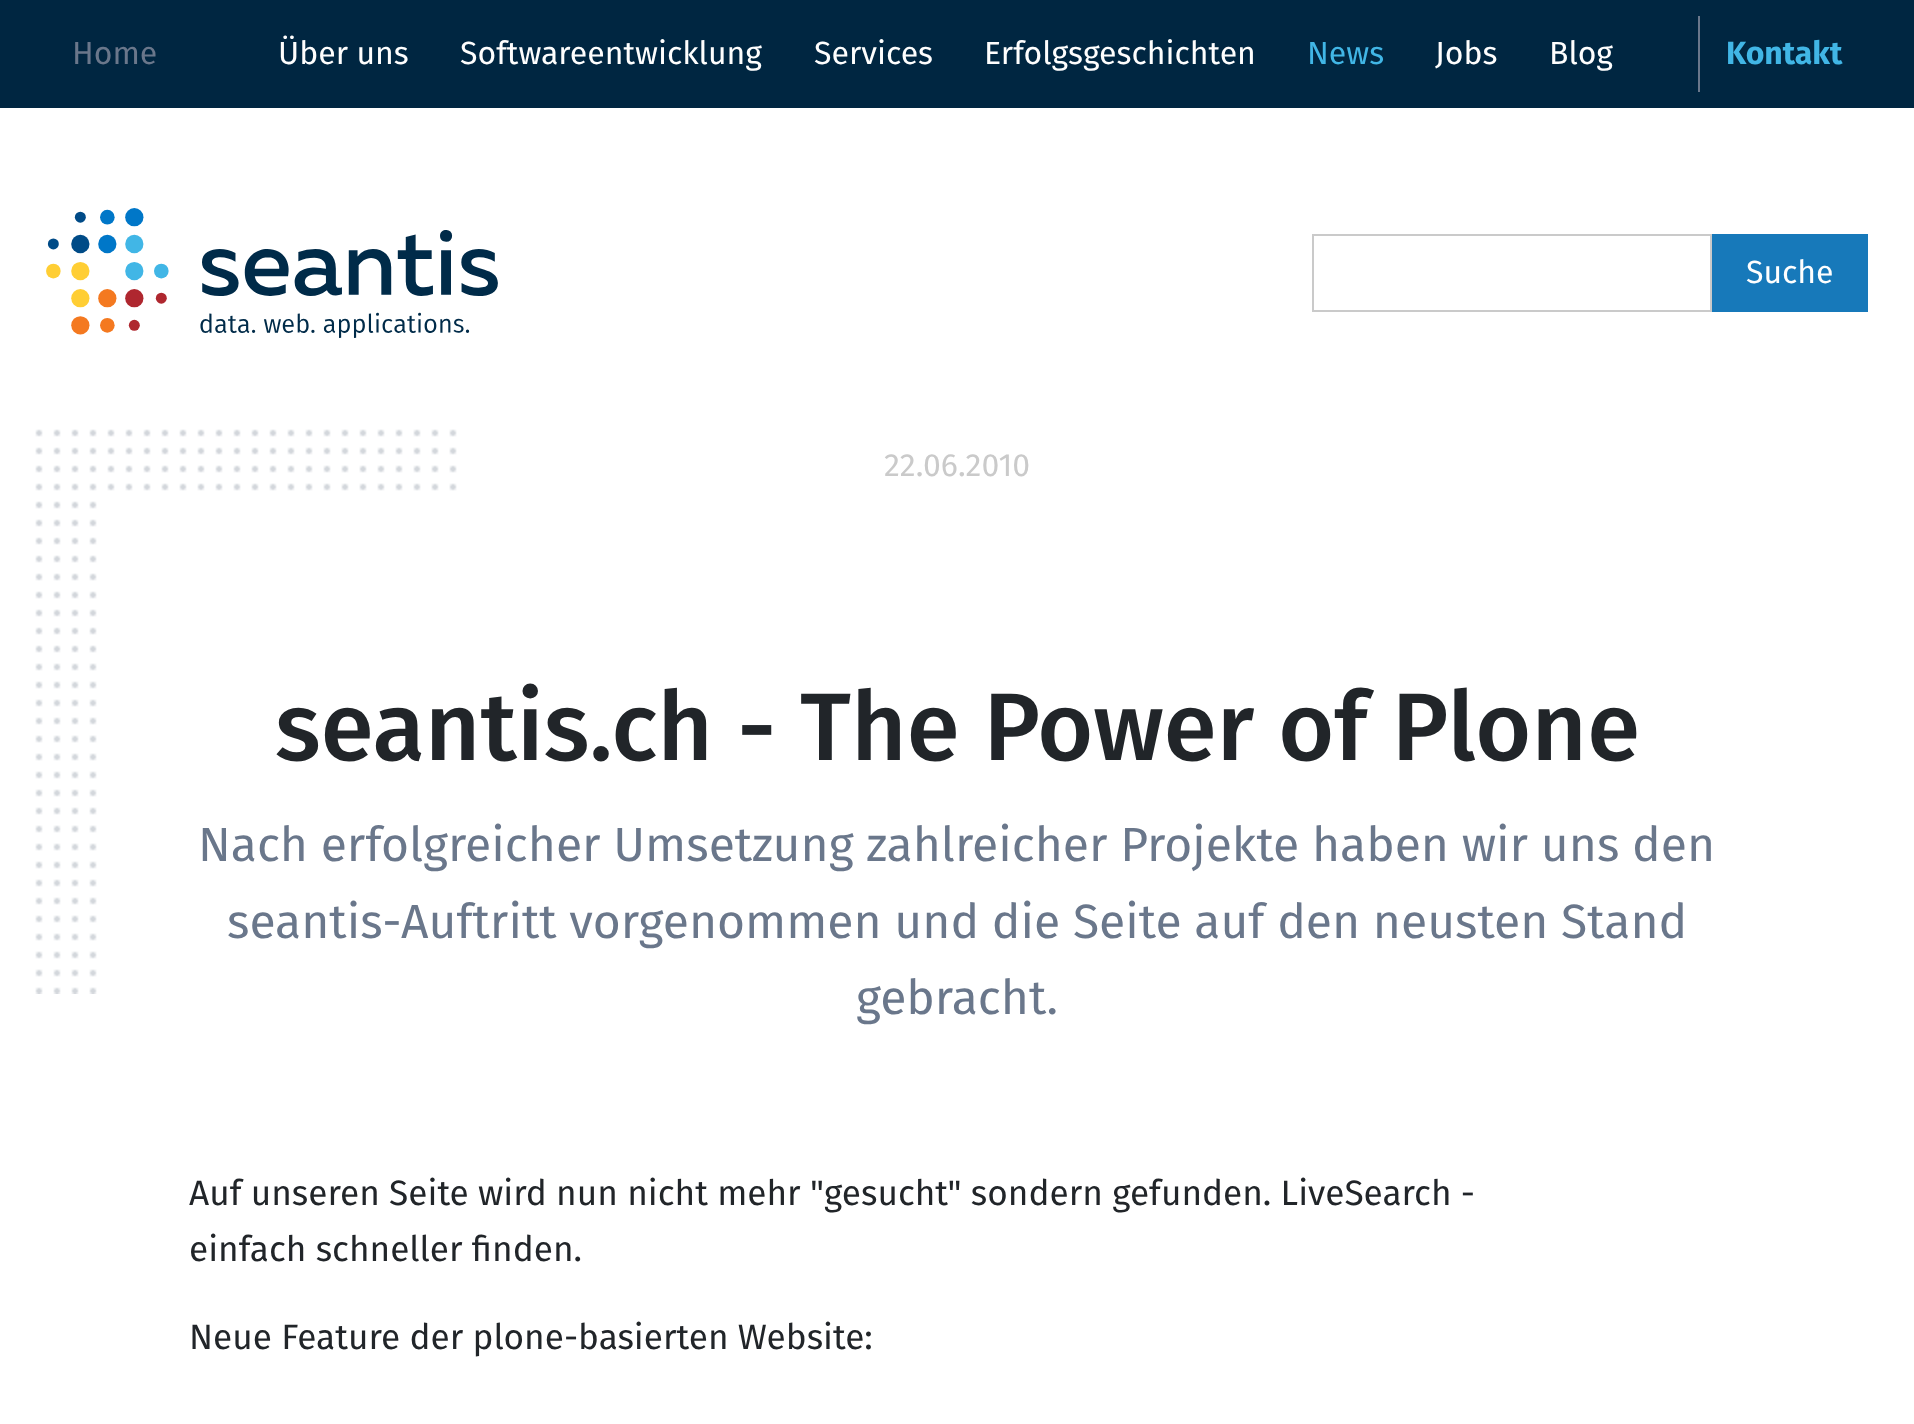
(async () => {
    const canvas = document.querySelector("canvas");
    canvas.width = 1914;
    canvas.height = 1424;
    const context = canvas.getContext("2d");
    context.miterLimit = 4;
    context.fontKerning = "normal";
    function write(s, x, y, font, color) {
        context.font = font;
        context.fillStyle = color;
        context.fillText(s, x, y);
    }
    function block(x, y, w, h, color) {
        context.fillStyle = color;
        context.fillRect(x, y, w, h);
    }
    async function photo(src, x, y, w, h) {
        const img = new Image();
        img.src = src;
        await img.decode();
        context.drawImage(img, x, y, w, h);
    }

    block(0, 0, 1914, 1424, "rgb(255, 255, 255)");
    block(0, 0, 1914, 108, "rgb(0, 38, 65)");
    write("Home", 72, 64, "32px Fira Sans", "rgb(106, 119, 139)");
    write("Über uns", 278, 64, "32px Fira Sans", "rgb(254, 254, 254)");
    write("Softwareentwicklung", 460, 64, "32px Fira Sans", "rgb(254, 254, 254)");
    write("Services", 814, 64, "32px Fira Sans", "rgb(254, 254, 254)");
    write("Erfolgsgeschichten", 984, 64, "32px Fira Sans", "rgb(254, 254, 254)");
    write("News", 1307, 64, "32px Fira Sans", "rgb(65, 182, 230)");
    write("Jobs", 1435, 64, "32px Fira Sans", "rgb(254, 254, 254)");
    write("Blog", 1549, 64, "32px Fira Sans", "rgb(254, 254, 254)");
    block(1698, 16, 2, 76, "rgb(106, 119, 139)");
    write("Kontakt", 1726, 64, "bold 32px Fira Sans", "rgb(65, 182, 230)");
    await photo("media/1.png", 46, 208, 452, 130);
    context.strokeStyle = "rgb(202, 202, 202)";
    context.lineWidth = 2;
    context.strokeRect(1313, 235, 398, 76);
    block(1712, 234, 156, 78, "rgb(23, 121, 186)");
    write("Suche", 1746, 283, "32px Fira Sans", "rgb(254, 254, 254)");
    write("seantis.ch - The Power of Plone", 275, 760, "500 96px Fira Sans", "rgb(33, 37, 41)");
    write("Nach erfolgreicher Umsetzung zahlreicher Projekte haben wir uns den", 198, 861, "48px Fira Sans", "rgb(106, 119, 139)");
    write("seantis-Auftritt vorgenommen und die Seite auf den neusten Stand", 227, 938, "48px Fira Sans", "rgb(106, 119, 139)");
    await photo("media/2.png", 35, 429, 422, 565);
    write("22.06.2010", 884, 476, "32px Fira Sans", "rgb(202, 202, 202)");
    write("gebracht.", 856, 1014, "48px Fira Sans", "rgb(106, 119, 139)");
    write("Auf unseren Seite wird nun nicht mehr \"gesucht\" sondern gefunden. LiveSearch -", 189, 1205, "35.2px Fira Sans", "rgb(33, 37, 41)");
    write("einfach schneller finden.", 189, 1261, "35.2px Fira Sans", "rgb(33, 37, 41)");
    write("Neue Feature der plone-basierten Website:", 189, 1349, "35.2px Fira Sans", "rgb(33, 37, 41)");
})();
